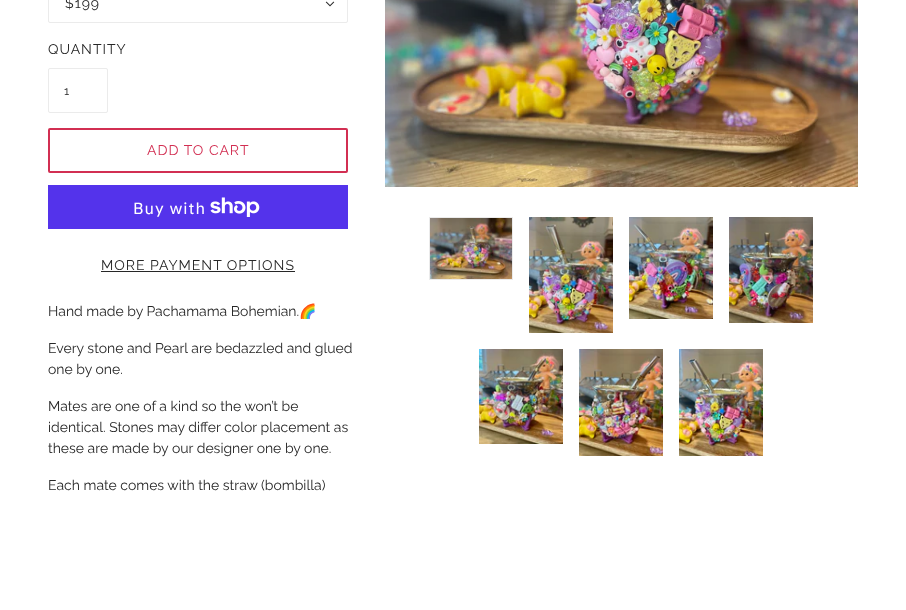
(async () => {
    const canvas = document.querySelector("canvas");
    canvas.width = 906;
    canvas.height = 610;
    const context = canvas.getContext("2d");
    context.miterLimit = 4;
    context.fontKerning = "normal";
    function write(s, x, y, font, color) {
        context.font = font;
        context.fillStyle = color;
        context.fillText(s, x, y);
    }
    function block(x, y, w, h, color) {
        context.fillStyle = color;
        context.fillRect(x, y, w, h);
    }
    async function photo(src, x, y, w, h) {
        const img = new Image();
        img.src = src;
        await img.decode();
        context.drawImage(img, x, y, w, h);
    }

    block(0, 0, 906, 610, "rgb(255, 255, 255)");
    context.beginPath();
    context.roundRect(48.5, -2.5, 299, 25, 1.5);
    context.strokeStyle = "rgb(235, 235, 235)";
    context.stroke();
    context.letterSpacing = "1px";
    write("$199", 65, 8, "14px Raleway", "rgb(39, 39, 39)");
    await photo("media/1.png", 325, 1, 10, 6);
    write("QUANTITY", 48, 54, "14px Raleway", "rgb(39, 39, 39)");
    context.beginPath();
    context.roundRect(48.5, 68.5, 59, 44, 1.5);
    context.stroke();
    write("1", 64, 95, "12px Raleway", "rgb(39, 39, 39)");
    context.beginPath();
    context.roundRect(49, 129, 298, 43, 1);
    context.strokeStyle = "rgb(210, 47, 82)";
    context.lineWidth = 2;
    context.stroke();
    write("ADD TO CART", 147, 155, "14px Raleway", "rgb(210, 47, 82)");
    block(48, 185, 300, 44, "rgb(84, 51, 235)");
    write("Buy with", 133, 214, "16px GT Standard", "rgb(255, 255, 255)");
    await photo("media/2.png", 210, 197, 50, 20);
    write("MORE PAYMENT OPTIONS", 101, 270, "14px Raleway", "rgb(39, 39, 39)");
    block(101, 271, 194, 1, "rgb(39, 39, 39)");
    await photo("media/3.png", 385, 0, 473, 187);
    context.strokeStyle = "rgb(235, 235, 235)";
    context.lineWidth = 1;
    context.strokeRect(429.5, 217.5, 83, 62);
    await photo("media/4.png", 430, 218, 82, 61);
    await photo("media/5.png", 529, 217, 84, 116);
    await photo("media/6.png", 629, 217, 84, 102);
    await photo("media/7.png", 729, 217, 84, 106);
    await photo("media/8.png", 479, 349, 84, 95);
    await photo("media/9.png", 579, 349, 84, 107);
    await photo("media/10.png", 679, 349, 84, 107);
    context.letterSpacing = "0px";
    write("Hand made by Pachamama Bohemian.", 48, 316, "14px Raleway", "rgb(39, 39, 39)");
    write("🌈", 299, 316, "14px Noto Color Emoji", "rgb(39, 39, 39)");
    write("Every stone and Pearl are bedazzled and glued", 48, 353, "14px Raleway", "rgb(39, 39, 39)");
    write("one by one.", 48, 374, "14px Raleway", "rgb(39, 39, 39)");
    write("Mates are one of a kind so the won’t be", 48, 411, "14px Raleway", "rgb(39, 39, 39)");
    write("identical. Stones may differ color placement as", 48, 432, "14px Raleway", "rgb(39, 39, 39)");
    write("these are made by our designer one by one.", 48, 453, "14px Raleway", "rgb(39, 39, 39)");
    write("Each mate comes with the straw (bombilla)", 48, 490, "14px Raleway", "rgb(39, 39, 39)");
})();
